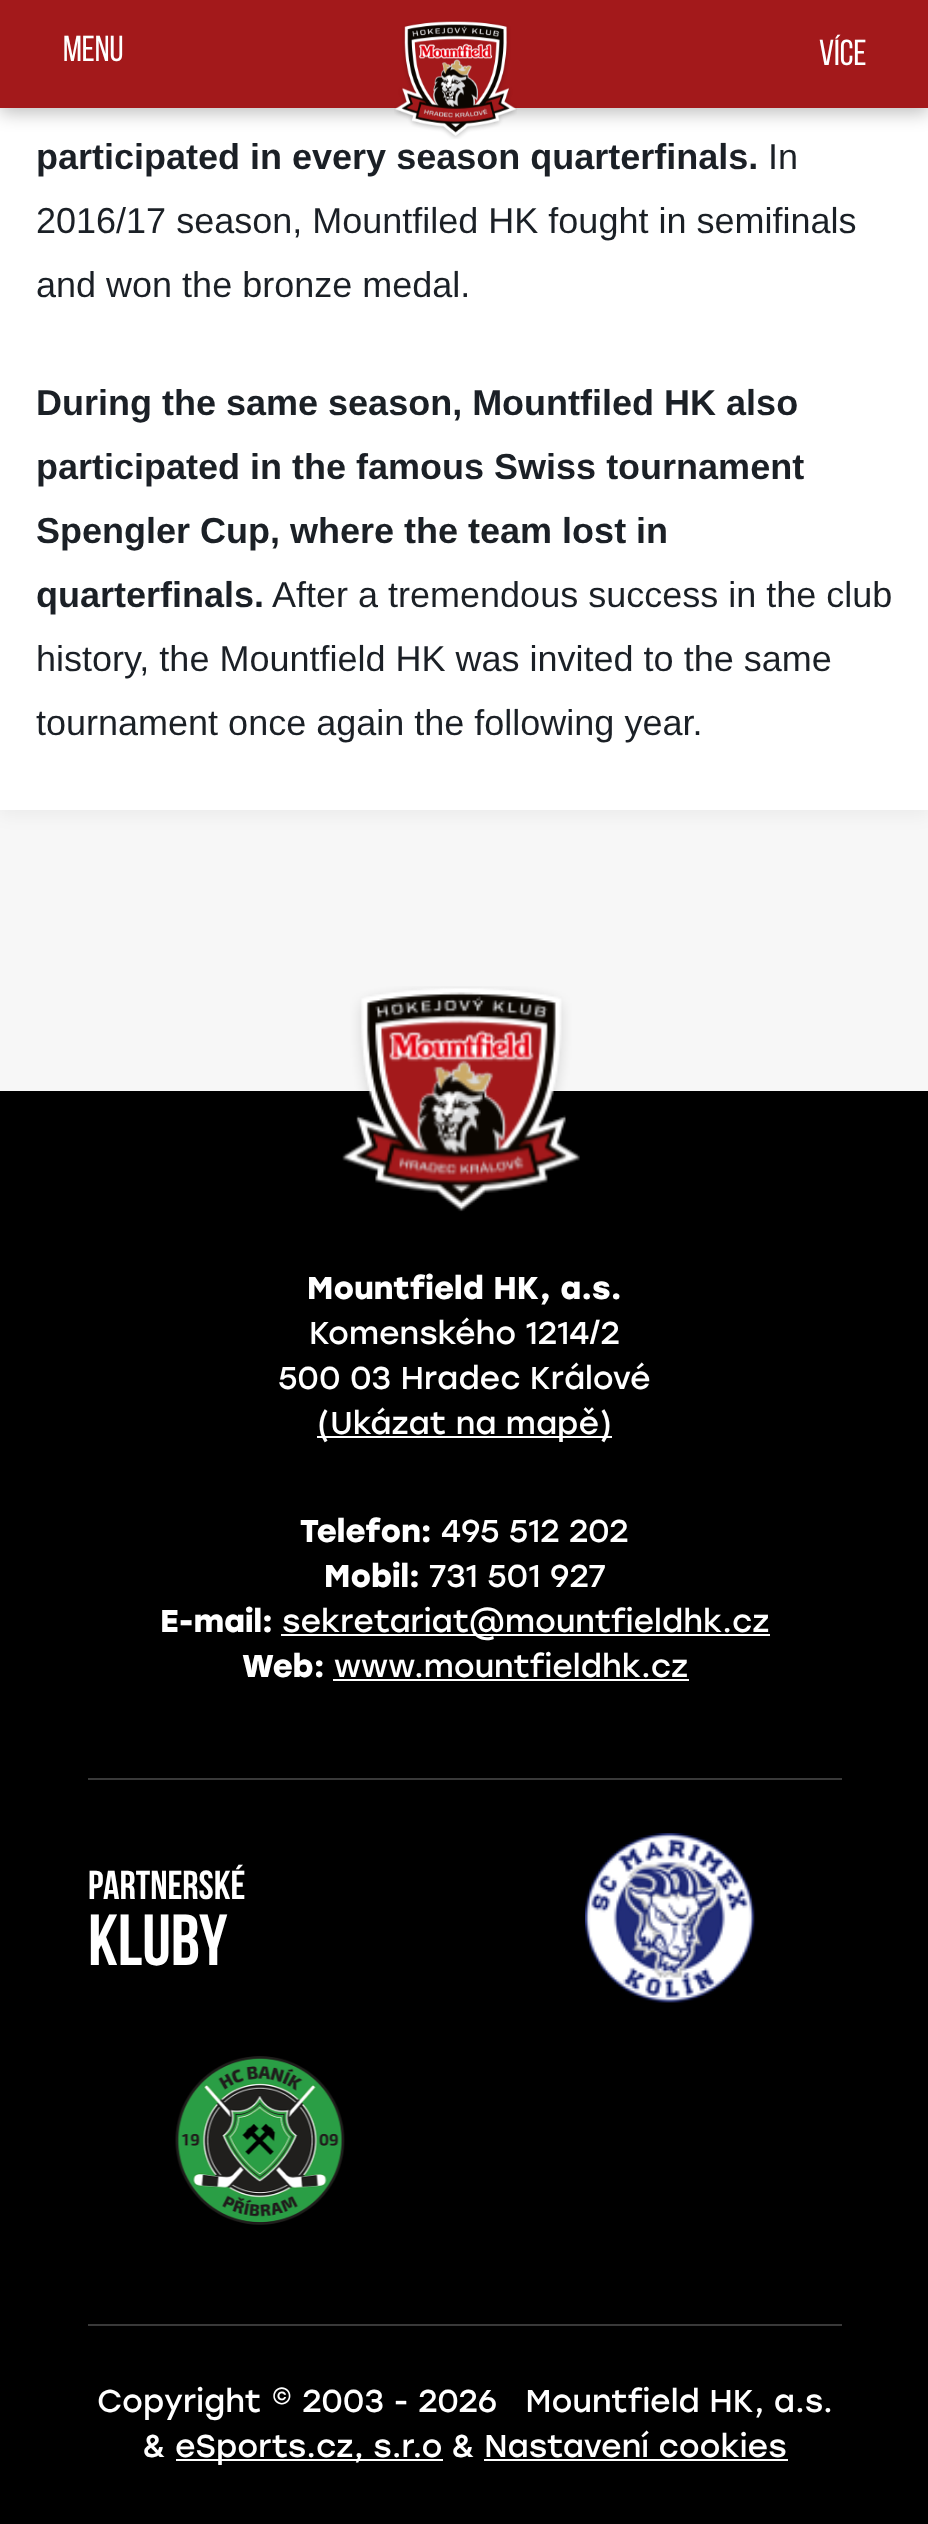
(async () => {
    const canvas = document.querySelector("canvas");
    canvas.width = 928;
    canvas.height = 2524;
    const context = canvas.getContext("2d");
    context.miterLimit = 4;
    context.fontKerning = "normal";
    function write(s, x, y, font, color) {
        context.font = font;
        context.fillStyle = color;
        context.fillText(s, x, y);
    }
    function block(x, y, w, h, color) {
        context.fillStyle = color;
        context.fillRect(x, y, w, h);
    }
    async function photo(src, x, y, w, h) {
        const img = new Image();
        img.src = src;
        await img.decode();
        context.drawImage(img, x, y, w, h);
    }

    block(0, 0, 928, 2524, "rgb(247, 247, 247)");
    context.fillStyle = "rgba(1, 1, 1, 0.05)";
    context.filter = "blur(9px)";
    context.beginPath();
    context.rect(0, -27, 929, 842);
    context.fill();
    context.filter = "none";
    block(0, 108, 928, 702, "rgb(255, 255, 255)");
    context.fillStyle = "rgba(1, 1, 1, 0.25)";
    context.filter = "blur(9px)";
    context.beginPath();
    context.rect(0, 5, 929, 108);
    context.fill();
    context.filter = "none";
    block(0, 0, 928, 108, "rgb(163, 25, 27)");
    write("MENU", 63, 61, "36px Bebas Neue", "rgb(255, 255, 255)");
    await photo("media/1.png", 394, 20, 123, 119);
    write("VÍCE", 819, 65, "36px Bebas Neue", "rgb(255, 255, 255)");
    write("participated in every season quarterfinals.", 36, 169, "bold 36px Liberation Sans", "rgb(27, 32, 38)");
    write("In", 768, 169, "36px Liberation Sans", "rgb(27, 32, 38)");
    write("2016/17 season, Mountfiled HK fought in semifinals", 36, 233, "36px Liberation Sans", "rgb(27, 32, 38)");
    write("and won the bronze medal.", 36, 297, "36px Liberation Sans", "rgb(27, 32, 38)");
    write("During the same season, Mountfiled HK also", 36, 415, "bold 36px Liberation Sans", "rgb(27, 32, 38)");
    write("participated in the famous Swiss tournament", 36, 479, "bold 36px Liberation Sans", "rgb(27, 32, 38)");
    write("Spengler Cup, where the team lost in", 36, 543, "bold 36px Liberation Sans", "rgb(27, 32, 38)");
    write("quarterfinals.", 36, 607, "bold 36px Liberation Sans", "rgb(27, 32, 38)");
    write("After a tremendous success in the club", 272, 607, "36px Liberation Sans", "rgb(27, 32, 38)");
    write("history, the Mountfield HK was invited to the same", 36, 671, "36px Liberation Sans", "rgb(27, 32, 38)");
    write("tournament once again the following year.", 36, 735, "36px Liberation Sans", "rgb(27, 32, 38)");
    block(0, 1091, 928, 1433, "rgb(0, 0, 0)");
    await photo("media/2.png", 342, 986, 238, 226);
    write("Mountfield HK, a.s.", 307, 1299, "bold 31.5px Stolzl", "rgb(255, 255, 255)");
    write("Komenského 1214/2", 309, 1344, "31.5px Stolzl", "rgb(255, 255, 255)");
    write("500 03 Hradec Králové", 278, 1389, "31.5px Stolzl", "rgb(255, 255, 255)");
    block(317, 1436, 295, 2, "rgb(255, 255, 255)");
    write("(Ukázat na mapě)", 317, 1434, "31.5px Stolzl", "rgb(255, 255, 255)");
    write("Telefon:", 300, 1542, "bold 31.5px Stolzl", "rgb(255, 255, 255)");
    write("495 512 202", 441, 1542, "31.5px Stolzl", "rgb(255, 255, 255)");
    write("Mobil:", 324, 1587, "bold 31.5px Stolzl", "rgb(255, 255, 255)");
    write("731 501 927", 429, 1587, "31.5px Stolzl", "rgb(255, 255, 255)");
    write("E-mail:", 160, 1632, "bold 31.5px Stolzl", "rgb(255, 255, 255)");
    block(281, 1634, 489, 2, "rgb(255, 255, 255)");
    write("sekretariat@mountfieldhk.cz", 282, 1632, "31.5px Stolzl", "rgb(255, 255, 255)");
    write("Web:", 242, 1677, "bold 31.5px Stolzl", "rgb(255, 255, 255)");
    write("www.mountfieldhk.cz", 334, 1677, "31.5px Stolzl", "rgb(255, 255, 255)");
    block(333, 1679, 356, 2, "rgb(255, 255, 255)");
    block(88, 1778, 754, 2, "rgb(57, 57, 57)");
    write("Partnerské", 88, 1899, "bold 40.5px Bebas Neue", "rgb(255, 255, 255)");
    write("kluby", 88, 1965, "bold 72px Bebas Neue", "rgb(255, 255, 255)");
    await photo("media/3.png", 585, 1833, 170, 170);
    await photo("media/4.png", 175, 2056, 170, 169);
    block(88, 2324, 754, 2, "rgb(57, 57, 57)");
    write("Copyright © 2003 - 2026   Mountfield HK, a.s.", 97, 2412, "31.5px Stolzl", "rgb(255, 255, 255)");
    write("&", 143, 2457, "31.5px Stolzl", "rgb(255, 255, 255)");
    block(176, 2459, 267, 2, "rgb(255, 255, 255)");
    write("eSports.cz, s.r.o & Nastavení cookies", 175, 2457, "31.5px Stolzl", "rgb(255, 255, 255)");
    block(484, 2459, 304, 2, "rgb(255, 255, 255)");
})();
